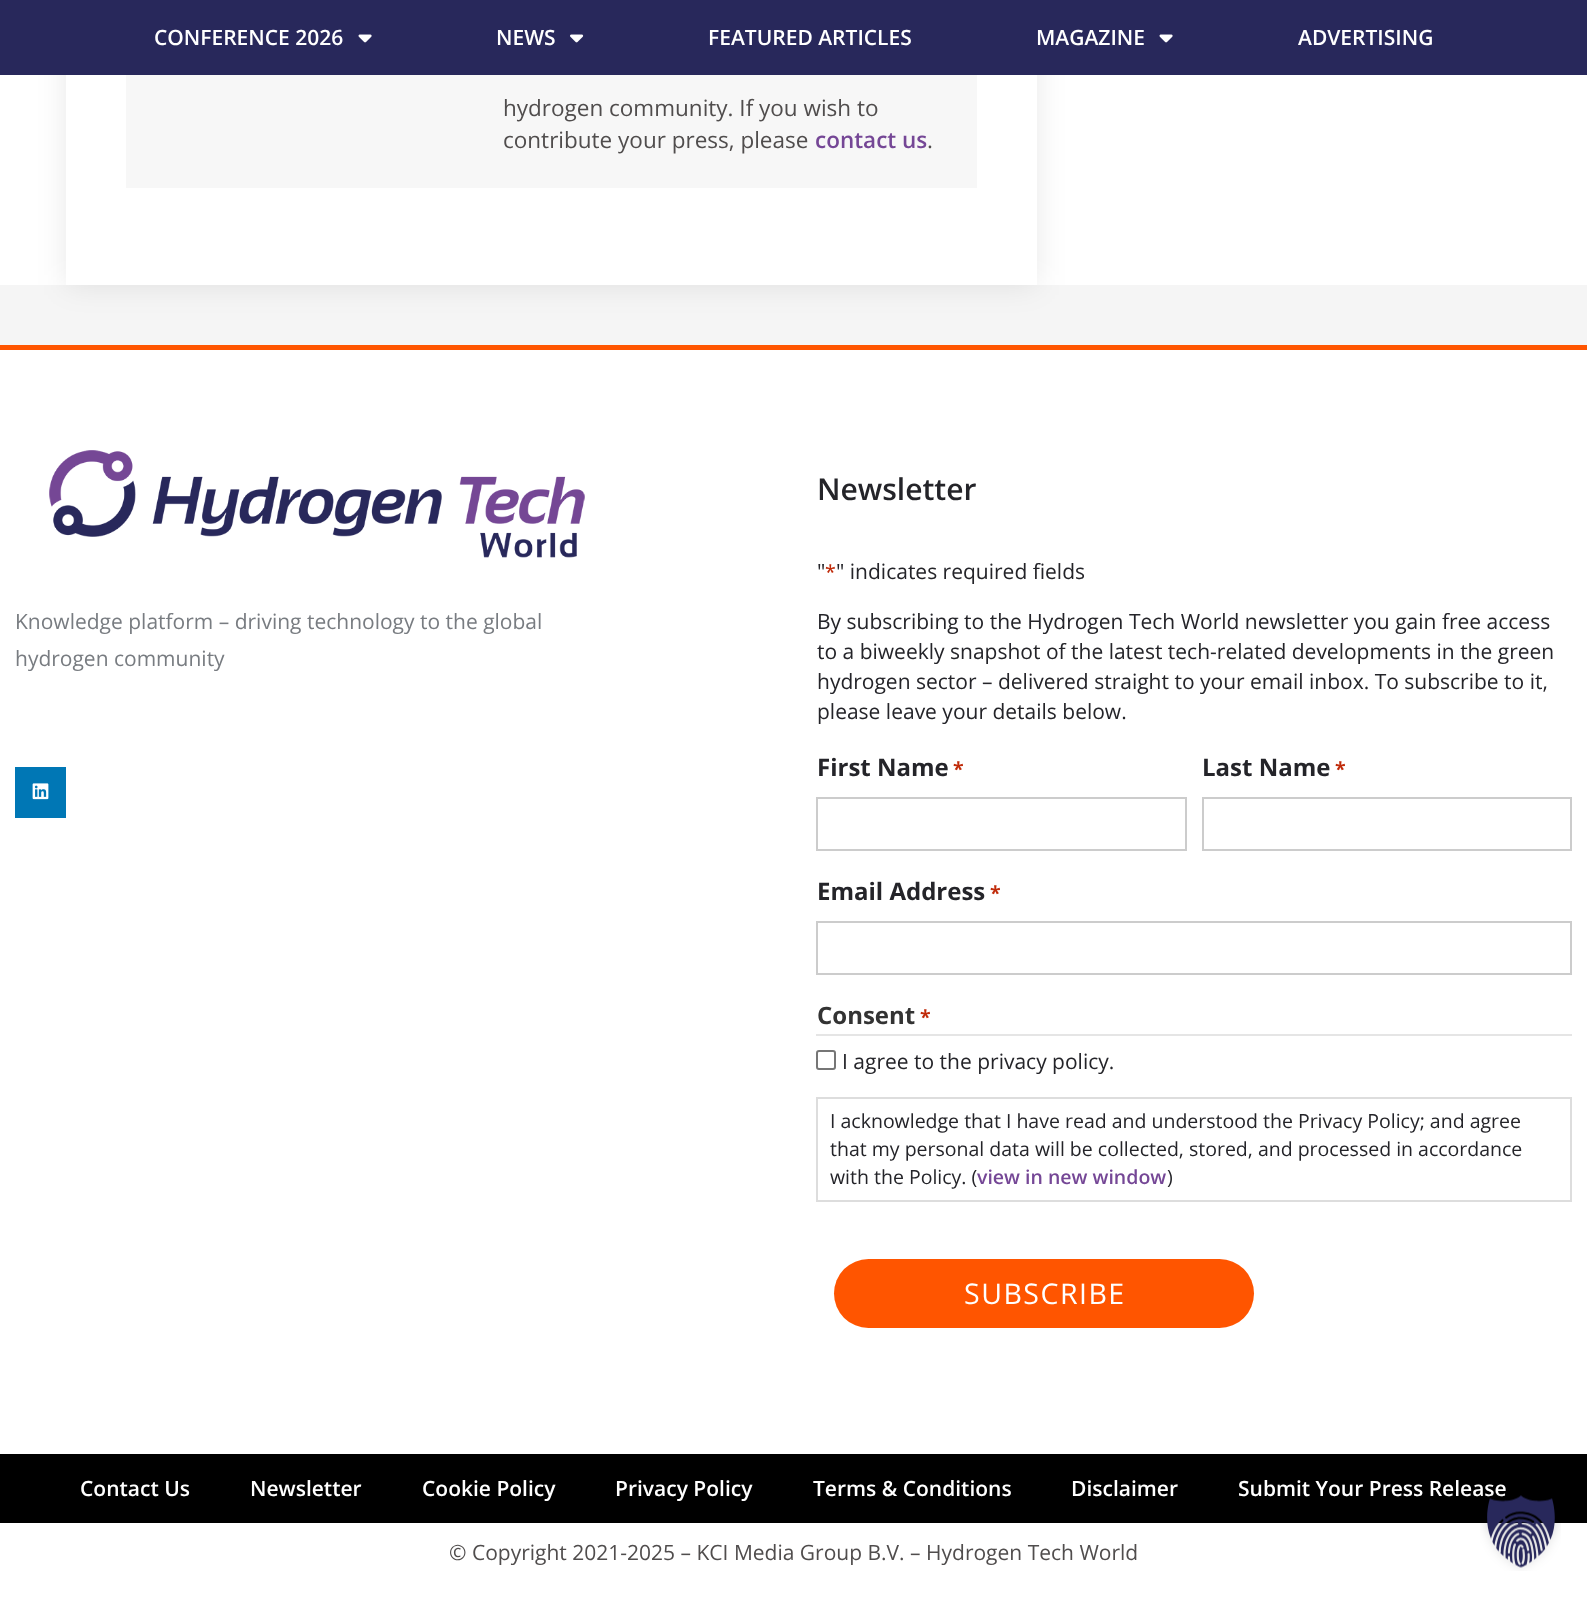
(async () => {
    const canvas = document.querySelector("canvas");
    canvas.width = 1587;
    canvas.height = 1597;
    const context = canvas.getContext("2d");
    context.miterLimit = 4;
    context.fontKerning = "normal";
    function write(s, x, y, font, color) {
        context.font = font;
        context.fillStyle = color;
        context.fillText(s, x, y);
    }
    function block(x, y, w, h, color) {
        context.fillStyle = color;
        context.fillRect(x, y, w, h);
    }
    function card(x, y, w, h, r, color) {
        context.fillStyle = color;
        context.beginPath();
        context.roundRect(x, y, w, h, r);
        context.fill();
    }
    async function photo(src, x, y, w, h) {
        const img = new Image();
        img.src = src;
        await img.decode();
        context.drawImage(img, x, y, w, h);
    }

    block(0, 0, 1587, 1597, "rgb(245, 245, 245)");
    block(0, 75, 1587, 210, "rgb(255, 255, 255)");
    context.fillStyle = "rgba(0, 0, 0, 0.09)";
    context.filter = "blur(15px)";
    context.beginPath();
    context.rect(66, -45, 971, 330);
    context.fill();
    context.filter = "none";
    block(0, 0, 1587, 75, "rgb(40, 40, 91)");
    write("CONFERENCE 2026", 154, 45, "600 21px Open Sans", "rgb(255, 255, 255)");
    await photo("media/1.png", 358, 34, 14, 9);
    write("NEWS", 496, 45, "600 21px Open Sans", "rgb(255, 255, 255)");
    await photo("media/2.png", 570, 34, 14, 9);
    write("FEATURED ARTICLES", 708, 45, "600 21px Open Sans", "rgb(255, 255, 255)");
    write("MAGAZINE", 1036, 45, "600 21px Open Sans", "rgb(255, 255, 255)");
    await photo("media/1.png", 1159, 34, 14, 9);
    write("ADVERTISING", 1298, 45, "600 21px Open Sans", "rgb(255, 255, 255)");
    block(66, 75, 971, 210, "rgb(255, 255, 255)");
    block(126, 75, 851, 113, "rgb(247, 247, 247)");
    write("hydrogen community. If you wish to", 503, 116, "22.5px Open Sans", "rgb(80, 77, 77)");
    write("contribute your press, please", 503, 148, "22.5px Open Sans", "rgb(80, 77, 77)");
    write("contact us", 815, 148, "600 22.5px Open Sans", "rgb(117, 71, 150)");
    write(".", 927, 148, "22.5px Open Sans", "rgb(80, 77, 77)");
    block(0, 350, 1587, 1247, "rgb(255, 255, 255)");
    block(0, 345, 1587, 5, "rgb(255, 85, 0)");
    await photo("media/3.png", 49, 450, 536, 108);
    write("Knowledge platform – driving technology to the global", 15, 629, "21px Open Sans", "rgb(120, 124, 129)");
    write("hydrogen community", 15, 666, "21px Open Sans", "rgb(120, 124, 129)");
    block(15, 767, 51, 51, "rgb(0, 119, 181)");
    await photo("media/4.png", 32, 783, 17, 17);
    write("Newsletter", 817, 500, "600 30px Open Sans", "rgb(36, 36, 41)");
    write("\"", 817, 579, "21px Open Sans", "rgb(36, 36, 41)");
    write("*", 825, 579, "500 19.5px Open Sans", "rgb(192, 43, 10)");
    write("\" indicates required fields", 836, 579, "21px Open Sans", "rgb(36, 36, 41)");
    write("By subscribing to the Hydrogen Tech World newsletter you gain free access", 817, 629, "21px Open Sans", "rgb(36, 36, 41)");
    write("to a biweekly snapshot of the latest tech-related developments in the green", 817, 659, "21px Open Sans", "rgb(36, 36, 41)");
    write("hydrogen sector – delivered straight to your email inbox. To subscribe to it,", 817, 689, "21px Open Sans", "rgb(36, 36, 41)");
    write("please leave your details below.", 817, 719, "21px Open Sans", "rgb(36, 36, 41)");
    write("First Name", 817, 776, "bold 24px Open Sans", "rgb(36, 36, 41)");
    write("*", 953, 776, "bold 19.5px Open Sans", "rgb(192, 43, 10)");
    context.strokeStyle = "rgb(204, 204, 204)";
    context.lineWidth = 2;
    context.strokeRect(817, 798, 369, 52);
    write("Last Name", 1202, 776, "bold 24px Open Sans", "rgb(36, 36, 41)");
    write("*", 1335, 776, "bold 19.5px Open Sans", "rgb(192, 43, 10)");
    context.strokeRect(1203, 798, 368, 52);
    write("Email Address", 817, 900, "bold 24px Open Sans", "rgb(36, 36, 41)");
    write("*", 990, 900, "bold 19.5px Open Sans", "rgb(192, 43, 10)");
    context.strokeRect(817, 922, 754, 52);
    block(816, 1034, 756, 2, "rgb(229, 229, 229)");
    write("Consent", 817, 1024, "bold 24px Open Sans", "rgb(51, 51, 51)");
    write("*", 920, 1024, "bold 19.5px Open Sans", "rgb(192, 43, 10)");
    context.beginPath();
    context.roundRect(817, 1051, 18, 18, 2);
    context.strokeStyle = "rgb(118, 118, 118)";
    context.stroke();
    write("I agree to the privacy policy.", 842, 1069, "21px Open Sans", "rgb(36, 36, 41)");
    context.strokeStyle = "rgb(221, 221, 221)";
    context.strokeRect(817, 1098, 754, 103);
    write("I acknowledge that I have read and understood the Privacy Policy; and agree", 830, 1128, "19.5px Open Sans", "rgb(36, 36, 41)");
    write("that my personal data will be collected, stored, and processed in accordance", 830, 1156, "19.5px Open Sans", "rgb(36, 36, 41)");
    write("with the Policy. (", 830, 1184, "19.5px Open Sans", "rgb(36, 36, 41)");
    write("view in new window", 977, 1184, "600 19.5px Open Sans", "rgb(117, 71, 150)");
    write(")", 1167, 1184, "19.5px Open Sans", "rgb(36, 36, 41)");
    card(834, 1259, 420, 69, 34.5, "rgb(255, 85, 0)");
    context.letterSpacing = "1.5px";
    write("SUBSCRIBE", 964, 1304, "28.5px Open Sans", "rgb(255, 255, 255)");
    block(0, 1454, 1587, 69, "rgb(0, 0, 0)");
    context.letterSpacing = "0px";
    write("Contact Us", 80, 1496, "600 21px Open Sans", "rgb(255, 255, 255)");
    write("Newsletter", 250, 1496, "600 21px Open Sans", "rgb(255, 255, 255)");
    write("Cookie Policy", 422, 1496, "600 21px Open Sans", "rgb(255, 255, 255)");
    write("Privacy Policy", 615, 1496, "600 21px Open Sans", "rgb(255, 255, 255)");
    write("Terms & Conditions", 813, 1496, "600 21px Open Sans", "rgb(255, 255, 255)");
    write("Disclaimer", 1071, 1496, "600 21px Open Sans", "rgb(255, 255, 255)");
    write("Submit Your Press Release", 1238, 1496, "600 21px Open Sans", "rgb(255, 255, 255)");
    write("© Copyright 2021-2025 – KCI Media Group B.V. – Hydrogen Tech World", 449, 1560, "21px Open Sans", "rgb(80, 77, 77)");
    await photo("media/5.png", 1480, 1493, 81, 78);
})();
